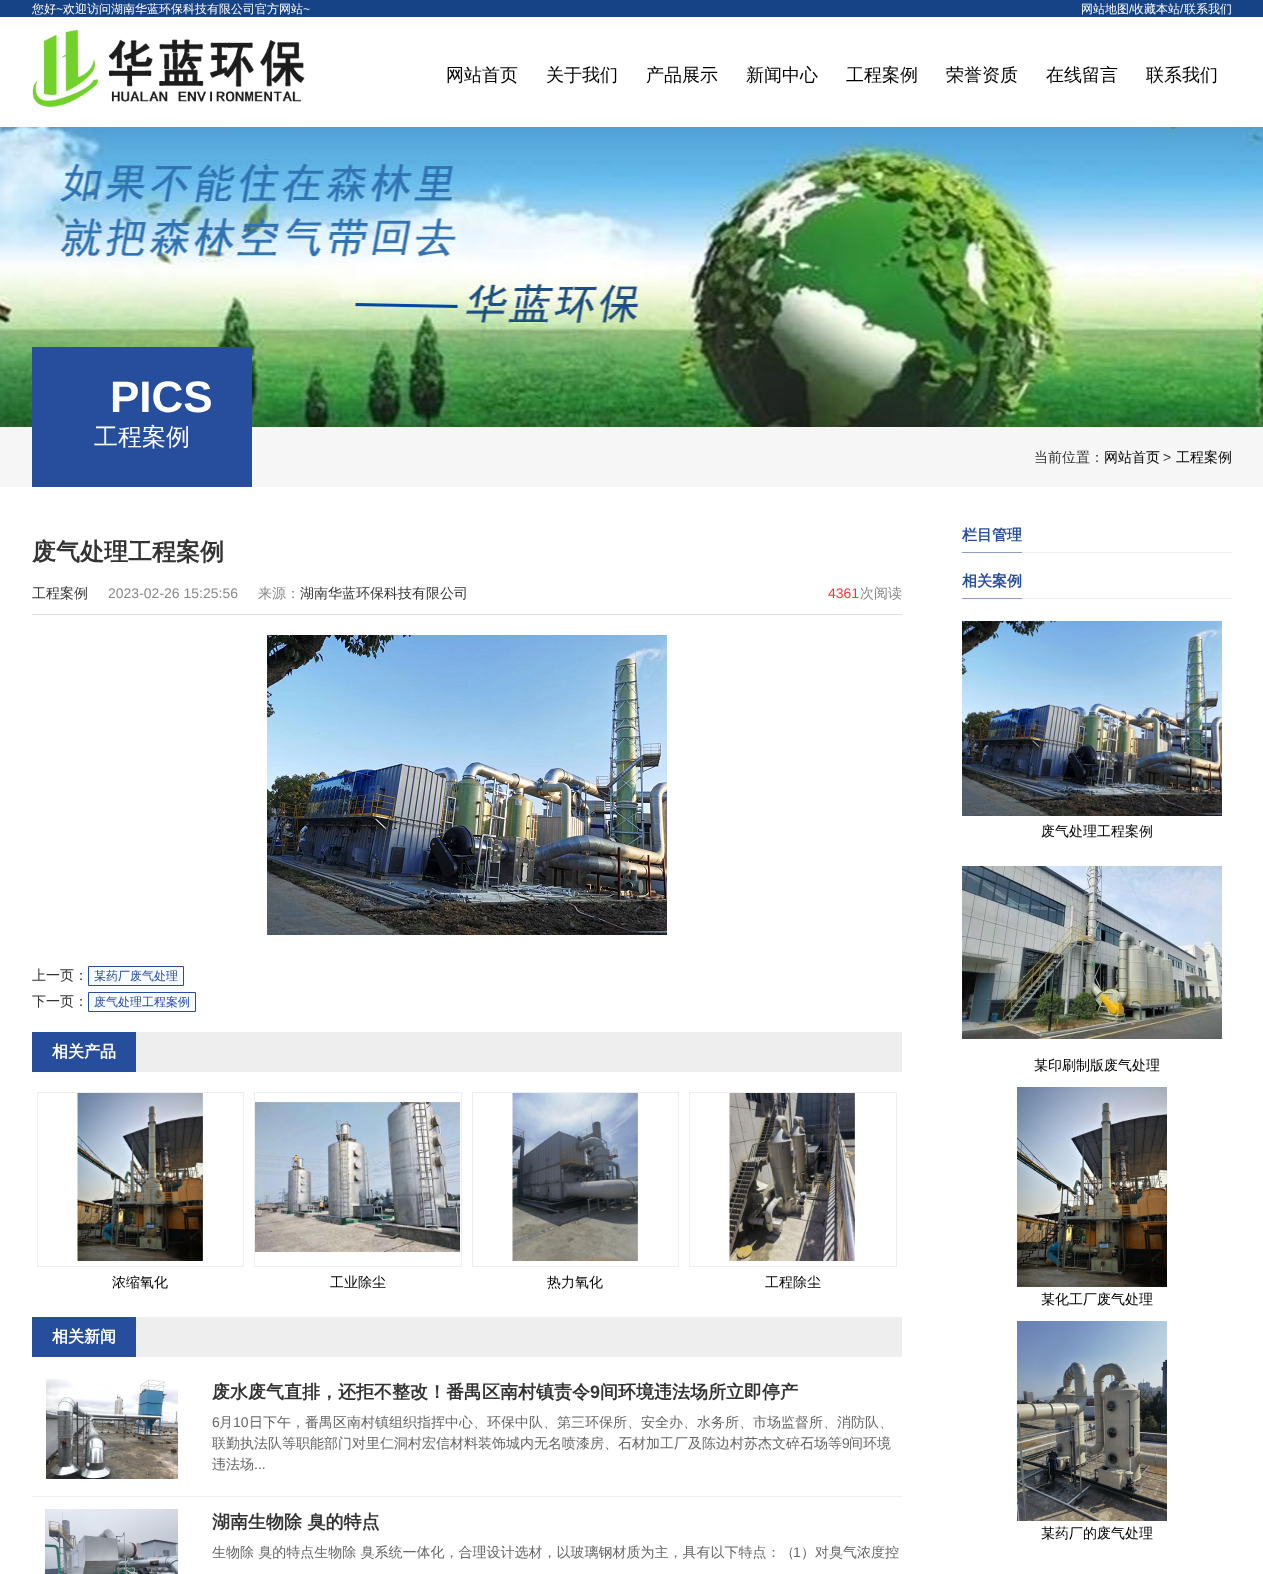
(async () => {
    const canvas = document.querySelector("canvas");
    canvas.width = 1263;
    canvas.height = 1574;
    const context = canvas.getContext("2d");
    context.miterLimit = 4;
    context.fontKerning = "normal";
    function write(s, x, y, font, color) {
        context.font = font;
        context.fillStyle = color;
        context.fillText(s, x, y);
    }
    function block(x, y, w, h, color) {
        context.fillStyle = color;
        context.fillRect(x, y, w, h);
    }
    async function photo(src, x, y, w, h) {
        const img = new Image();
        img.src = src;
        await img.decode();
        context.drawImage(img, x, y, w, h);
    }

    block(0, 0, 1263, 1574, "rgb(255, 255, 255)");
    block(0, 0, 1263, 17, "rgb(22, 67, 133)");
    write("您好", 32, 13, "500 12px WenQuanYi Zen Hei", "rgb(255, 255, 255)");
    write("~", 56, 13, "12px Liberation Sans", "rgb(255, 255, 255)");
    write("欢迎访问湖南华蓝环保科技有限公司官方网站", 63, 13, "500 12px WenQuanYi Zen Hei", "rgb(255, 255, 255)");
    write("~", 303, 13, "12px Liberation Sans", "rgb(255, 255, 255)");
    write("网站地图", 1081, 13, "500 12px WenQuanYi Zen Hei", "rgb(255, 255, 255)");
    write("/", 1129, 13, "12px Liberation Sans", "rgb(255, 255, 255)");
    write("收藏本站", 1132, 13, "500 12px WenQuanYi Zen Hei", "rgb(255, 255, 255)");
    write("/", 1180, 13, "12px Liberation Sans", "rgb(255, 255, 255)");
    write("联系我们", 1184, 13, "500 12px WenQuanYi Zen Hei", "rgb(255, 255, 255)");
    await photo("media/1.png", 32, 29, 273, 78);
    write("网站首页", 446, 81, "500 18px WenQuanYi Zen Hei", "rgb(0, 0, 0)");
    write("关于我们", 546, 81, "500 18px WenQuanYi Zen Hei", "rgb(0, 0, 0)");
    write("产品展示", 646, 81, "500 18px WenQuanYi Zen Hei", "rgb(0, 0, 0)");
    write("新闻中心", 746, 81, "500 18px WenQuanYi Zen Hei", "rgb(0, 0, 0)");
    write("工程案例", 846, 81, "500 18px WenQuanYi Zen Hei", "rgb(0, 0, 0)");
    write("荣誉资质", 946, 81, "500 18px WenQuanYi Zen Hei", "rgb(0, 0, 0)");
    write("在线留言", 1046, 81, "500 18px WenQuanYi Zen Hei", "rgb(0, 0, 0)");
    write("联系我们", 1146, 81, "500 18px WenQuanYi Zen Hei", "rgb(0, 0, 0)");
    await photo("media/2.png", 0, 127, 1263, 300);
    block(0, 427, 1263, 60, "rgb(246, 246, 246)");
    block(32, 347, 220, 140, "rgb(39, 78, 157)");
    write("PICS", 110, 412, "bold 44px Liberation Sans", "rgb(255, 255, 255)");
    write("工程案例", 94, 445, "500 24px WenQuanYi Zen Hei", "rgb(255, 255, 255)");
    write("当前位置：", 1034, 462, "500 14px WenQuanYi Zen Hei", "rgb(51, 51, 51)");
    write("网站首页", 1104, 462, "500 14px WenQuanYi Zen Hei", "rgb(0, 0, 0)");
    write(">", 1163, 462, "14px Liberation Sans", "rgb(51, 51, 51)");
    write("工程案例", 1176, 462, "500 14px WenQuanYi Zen Hei", "rgb(0, 0, 0)");
    write("废气处理工程案例", 32, 560, "bold 24px WenQuanYi Zen Hei", "rgb(51, 51, 51)");
    block(32, 614, 870, 1, "rgb(221, 221, 221)");
    write("工程案例", 32, 598, "500 14px WenQuanYi Zen Hei", "rgb(51, 51, 51)");
    write("2023-02-26 15:25:56", 108, 598, "14px Liberation Sans", "rgb(136, 136, 136)");
    write("来源：", 258, 598, "500 14px WenQuanYi Zen Hei", "rgb(136, 136, 136)");
    write("湖南华蓝环保科技有限公司", 300, 598, "500 14px WenQuanYi Zen Hei", "rgb(51, 51, 51)");
    write("4361", 828, 598, "14px Liberation Sans", "rgb(255, 52, 52)");
    write("次阅读", 860, 598, "500 14px WenQuanYi Zen Hei", "rgb(136, 136, 136)");
    await photo("media/3.png", 267, 635, 400, 300);
    write("上一页：", 32, 980, "500 14px WenQuanYi Zen Hei", "rgb(51, 51, 51)");
    context.fillStyle = "rgb(248, 251, 255)";
    context.beginPath();
    context.rect(88.5, 966.5, 95, 19);
    context.fill();
    context.strokeStyle = "rgb(39, 78, 157)";
    context.stroke();
    write("某药厂废气处理", 94, 980, "500 12px WenQuanYi Zen Hei", "rgb(39, 78, 157)");
    write("下一页：", 32, 1006, "500 14px WenQuanYi Zen Hei", "rgb(51, 51, 51)");
    context.fillStyle = "rgb(248, 251, 255)";
    context.beginPath();
    context.rect(88.5, 992.5, 107, 19);
    context.fill();
    context.stroke();
    write("废气处理工程案例", 94, 1006, "500 12px WenQuanYi Zen Hei", "rgb(39, 78, 157)");
    block(136, 1032, 766, 40, "rgb(238, 238, 238)");
    block(32, 1032, 104, 40, "rgb(39, 78, 157)");
    write("相关产品", 52, 1057, "bold 16px WenQuanYi Zen Hei", "rgb(255, 255, 255)");
    context.strokeStyle = "rgb(238, 238, 238)";
    context.strokeRect(37.5, 1092.5, 206, 174);
    await photo("media/4.png", 77, 1093, 126, 168);
    write("浓缩氧化", 112, 1287, "500 14px WenQuanYi Zen Hei", "rgb(0, 0, 0)");
    context.strokeRect(254.5, 1092.5, 207, 174);
    await photo("media/5.png", 255, 1102, 205, 150);
    write("工业除尘", 330, 1287, "500 14px WenQuanYi Zen Hei", "rgb(0, 0, 0)");
    context.strokeRect(472.5, 1092.5, 206, 174);
    await photo("media/6.png", 512, 1093, 126, 168);
    write("热力氧化", 547, 1287, "500 14px WenQuanYi Zen Hei", "rgb(0, 0, 0)");
    context.strokeRect(689.5, 1092.5, 207, 174);
    await photo("media/7.png", 729, 1093, 126, 168);
    write("工程除尘", 765, 1287, "500 14px WenQuanYi Zen Hei", "rgb(0, 0, 0)");
    block(136, 1317, 766, 40, "rgb(238, 238, 238)");
    block(32, 1317, 104, 40, "rgb(39, 78, 157)");
    write("相关新闻", 52, 1342, "bold 16px WenQuanYi Zen Hei", "rgb(255, 255, 255)");
    block(32, 1496, 870, 1, "rgb(238, 238, 238)");
    await photo("media/8.png", 46, 1379, 132, 100);
    write("废水废气直排，还拒不整改！番禺区南村镇责令", 212, 1398, "bold 18px WenQuanYi Zen Hei", "rgb(51, 51, 51)");
    write("9", 590, 1398, "bold 18px Liberation Sans", "rgb(51, 51, 51)");
    write("间环境违法场所立即停产", 600, 1398, "bold 18px WenQuanYi Zen Hei", "rgb(51, 51, 51)");
    write("6", 212, 1427, "14px Liberation Sans", "rgb(102, 102, 102)");
    write("月", 219, 1427, "500 14px WenQuanYi Zen Hei", "rgb(102, 102, 102)");
    write("10", 233, 1427, "14px Liberation Sans", "rgb(102, 102, 102)");
    write("日下午，番禺区南村镇组织指挥中心、环保中队、第三环保所、安全办、水务所、市场监督所、消防队、", 249, 1427, "500 14px WenQuanYi Zen Hei", "rgb(102, 102, 102)");
    write("联勤执法队等职能部门对里仁洞村宏信材料装饰城内无名喷漆房、石材加工厂及陈边村苏杰文碎石场等", 212, 1448, "500 14px WenQuanYi Zen Hei", "rgb(102, 102, 102)");
    write("9", 842, 1448, "14px Liberation Sans", "rgb(102, 102, 102)");
    write("间环境", 849, 1448, "500 14px WenQuanYi Zen Hei", "rgb(102, 102, 102)");
    write("违法场", 212, 1469, "500 14px WenQuanYi Zen Hei", "rgb(102, 102, 102)");
    write("...", 254, 1469, "14px Liberation Sans", "rgb(102, 102, 102)");
    await photo("media/9.png", 45, 1509, 133, 65);
    write("湖南生物除 臭的特点", 212, 1528, "bold 18px WenQuanYi Zen Hei", "rgb(51, 51, 51)");
    write("生物除 臭的特点生物除 臭系统一体化，合理设计选材，以玻璃钢材质为主，具有以下特点：（", 212, 1557, "500 14px WenQuanYi Zen Hei", "rgb(102, 102, 102)");
    write("1", 793, 1557, "14px Liberation Sans", "rgb(102, 102, 102)");
    write("）对臭气浓度控", 801, 1557, "500 14px WenQuanYi Zen Hei", "rgb(102, 102, 102)");
    block(1022, 552, 210, 1, "rgb(238, 238, 238)");
    write("栏目管理", 962, 540, "bold 15px WenQuanYi Zen Hei", "rgb(39, 78, 157)");
    block(962, 552, 60, 1, "rgb(139, 158, 198)");
    block(1022, 598, 210, 1, "rgb(238, 238, 238)");
    write("相关案例", 962, 586, "bold 15px WenQuanYi Zen Hei", "rgb(39, 78, 157)");
    block(962, 598, 60, 1, "rgb(139, 158, 198)");
    await photo("media/10.png", 962, 621, 260, 195);
    write("废气处理工程案例", 1041, 836, "500 14px WenQuanYi Zen Hei", "rgb(0, 0, 0)");
    await photo("media/11.png", 962, 865, 260, 175);
    write("某印刷制版废气处理", 1034, 1070, "500 14px WenQuanYi Zen Hei", "rgb(0, 0, 0)");
    await photo("media/12.png", 1017, 1087, 150, 200);
    write("某化工厂废气处理", 1041, 1304, "500 14px WenQuanYi Zen Hei", "rgb(0, 0, 0)");
    await photo("media/13.png", 1017, 1321, 150, 200);
    write("某药厂的废气处理", 1041, 1538, "500 14px WenQuanYi Zen Hei", "rgb(0, 0, 0)");
})();
